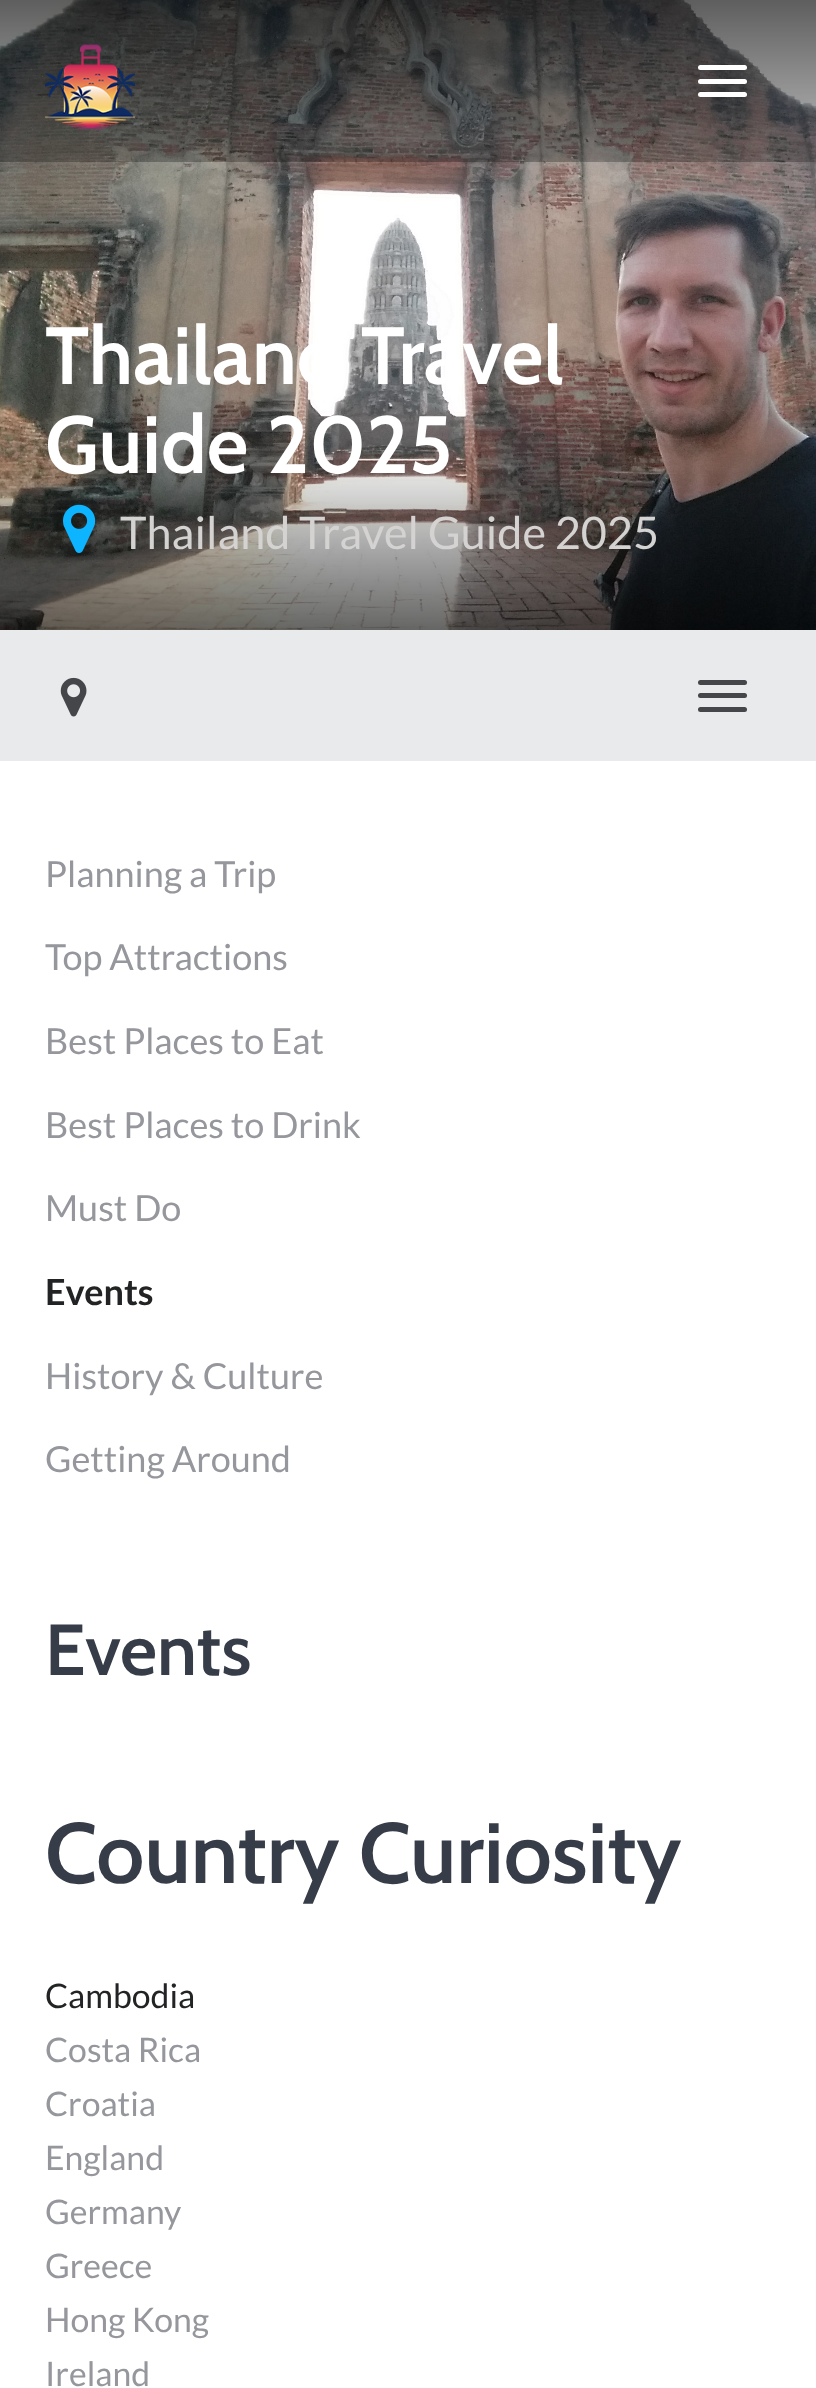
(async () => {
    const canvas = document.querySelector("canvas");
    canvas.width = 816;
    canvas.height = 2388;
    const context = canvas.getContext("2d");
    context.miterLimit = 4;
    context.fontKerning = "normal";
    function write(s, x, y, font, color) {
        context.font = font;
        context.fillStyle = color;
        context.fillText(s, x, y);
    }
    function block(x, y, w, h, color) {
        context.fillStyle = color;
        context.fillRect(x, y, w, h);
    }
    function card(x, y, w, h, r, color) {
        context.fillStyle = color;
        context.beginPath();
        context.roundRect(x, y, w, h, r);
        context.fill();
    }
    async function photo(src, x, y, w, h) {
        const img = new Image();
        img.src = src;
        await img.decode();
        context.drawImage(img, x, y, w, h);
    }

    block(0, 0, 816, 2388, "rgb(255, 255, 255)");
    await photo("media/2.png", 0, 0, 816, 630);
    block(0, 0, 816, 162, "rgba(0, 0, 0, 0.26)");
    await photo("media/1.png", 45, 44, 90, 86);
    card(698, 65, 49, 5, 2.5, "rgb(255, 255, 255)");
    card(698, 79, 49, 5, 2.5, "rgb(255, 255, 255)");
    card(698, 92, 49, 5, 2.5, "rgb(255, 255, 255)");
    write("Thailand Travel", 45, 384, "600 81px Cabin", "rgb(255, 255, 255)");
    write("Guide 2025", 45, 473, "600 81px Cabin", "rgb(255, 255, 255)");
    await photo("media/3.png", 63, 504, 33, 49);
    write("Thailand Travel Guide 2025", 120, 549, "45px Lato", "rgb(212, 211, 210)");
    block(0, 630, 816, 131, "rgb(233, 234, 235)");
    await photo("media/4.png", 60, 677, 27, 40);
    card(698, 680, 49, 5, 2.5, "rgb(68, 70, 73)");
    card(698, 693, 49, 5, 2.5, "rgb(68, 70, 73)");
    card(698, 707, 49, 5, 2.5, "rgb(68, 70, 73)");
    write("Planning a Trip", 45, 887, "36px Lato", "rgb(149, 151, 156)");
    write("Top Attractions", 45, 970, "36px Lato", "rgb(149, 151, 156)");
    write("Best Places to Eat", 45, 1054, "36px Lato", "rgb(149, 151, 156)");
    write("Best Places to Drink", 45, 1138, "36px Lato", "rgb(149, 151, 156)");
    write("Must Do", 45, 1221, "36px Lato", "rgb(149, 151, 156)");
    write("Events", 45, 1305, "bold 36px Lato", "rgb(34, 35, 36)");
    write("History & Culture", 45, 1389, "36px Lato", "rgb(149, 151, 156)");
    write("Getting Around", 45, 1472, "36px Lato", "rgb(149, 151, 156)");
    write("Events", 45, 1675, "600 72px Cabin", "rgb(54, 60, 72)");
    write("Country Curiosity", 45, 1883, "600 85.5px Cabin", "rgb(54, 60, 72)");
    write("Cambodia", 45, 2008, "33.75px Lato", "rgb(34, 35, 36)");
    write("Costa Rica", 45, 2062, "33.75px Lato", "rgb(149, 151, 156)");
    write("Croatia", 45, 2116, "33.75px Lato", "rgb(149, 151, 156)");
    write("England", 45, 2170, "33.75px Lato", "rgb(149, 151, 156)");
    write("Germany", 45, 2224, "33.75px Lato", "rgb(149, 151, 156)");
    write("Greece", 45, 2278, "33.75px Lato", "rgb(149, 151, 156)");
    write("Hong Kong", 45, 2332, "33.75px Lato", "rgb(149, 151, 156)");
    write("Ireland", 45, 2386, "33.75px Lato", "rgb(149, 151, 156)");
})();
